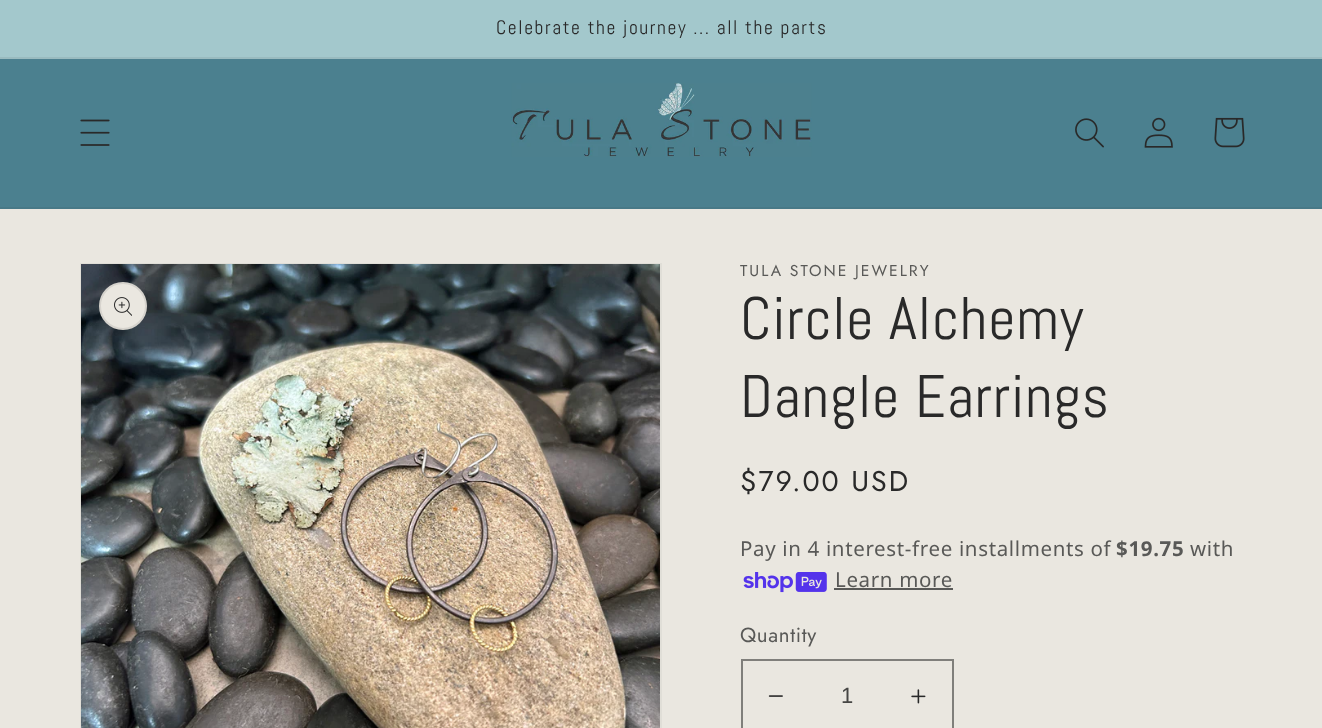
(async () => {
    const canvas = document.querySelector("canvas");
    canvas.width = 1322;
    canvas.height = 728;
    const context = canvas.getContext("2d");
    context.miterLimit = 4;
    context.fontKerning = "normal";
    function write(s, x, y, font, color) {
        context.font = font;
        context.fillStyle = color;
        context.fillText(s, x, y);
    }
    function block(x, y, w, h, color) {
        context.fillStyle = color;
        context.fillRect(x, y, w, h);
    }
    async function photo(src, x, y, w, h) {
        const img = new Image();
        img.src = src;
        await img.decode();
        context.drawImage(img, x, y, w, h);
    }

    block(0, 0, 1322, 728, "rgb(234, 231, 224)");
    block(0, 0, 1322, 57, "rgb(163, 200, 204)");
    block(0, 57, 1322, 2, "rgb(153, 187, 191)");
    context.letterSpacing = "1.6px";
    write("Celebrate the journey ... all the parts", 496, 34, "19.5px Abel", "rgb(41, 41, 41)");
    block(0, 59, 1322, 148, "rgb(75, 128, 143)");
    block(0, 207, 1322, 2, "rgb(72, 121, 135)");
    await photo("media/1.png", 80, 119, 30, 27);
    await photo("media/2.png", 511, 83, 301, 74);
    await photo("media/3.png", 1075, 118, 29, 30);
    await photo("media/4.png", 1144, 117, 29, 31);
    await photo("media/5.png", 1214, 117, 31, 31);
    context.strokeStyle = "rgb(224, 222, 215)";
    context.lineWidth = 2;
    context.strokeRect(81, 264, 580, 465);
    await photo("media/6.png", 81, 264, 579, 464);
    context.fillStyle = "rgb(234, 231, 224)";
    context.beginPath();
    context.arc(123, 306, 24, 0, Math.PI * 2);
    context.fill();
    context.beginPath();
    context.arc(123, 306, 23, 0, Math.PI * 2);
    context.strokeStyle = "rgba(41, 41, 41, 0.1)";
    context.stroke();
    await photo("media/7.png", 114, 297, 18, 19);
    context.letterSpacing = "2px";
    write("TULA STONE JEWELRY", 740, 276, "15.75px Jost", "rgb(89, 89, 87)");
    context.letterSpacing = "0.9px";
    write("Circle Alchemy", 740, 339, "60px Abel", "rgb(41, 41, 41)");
    write("Dangle Earrings", 740, 417, "60px Abel", "rgb(41, 41, 41)");
    context.letterSpacing = "2px";
    write("$79.00 USD", 740, 491, "28.5px Jost", "rgb(41, 41, 41)");
    context.letterSpacing = "0.65px";
    write("Pay in 4 interest-free installments of", 740, 556, "20.5px Noto Sans", "rgb(89, 89, 87)");
    write("$19.75", 1116, 556, "bold 20.5px Noto Sans", "rgb(89, 89, 87)");
    write("with", 1190, 556, "20.5px Noto Sans", "rgb(89, 89, 87)");
    await photo("media/8.png", 743, 572, 84, 21);
    write("Learn more", 835, 587, "20.5px Noto Sans", "rgb(89, 89, 87)");
    block(834, 588, 119, 2, "rgb(89, 89, 87)");
    write("Quantity", 740, 642, "20.5px Jost", "rgb(89, 89, 87)");
    await photo("media/9.png", 768, 695, 15, 2);
    await photo("media/10.png", 911, 689, 15, 15);
    context.strokeStyle = "rgb(128, 127, 123)";
    context.strokeRect(742, 660, 211, 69);
    context.letterSpacing = "0px";
    write("1", 841, 703, "22px Liberation Sans", "rgb(70, 70, 68)");
})();
